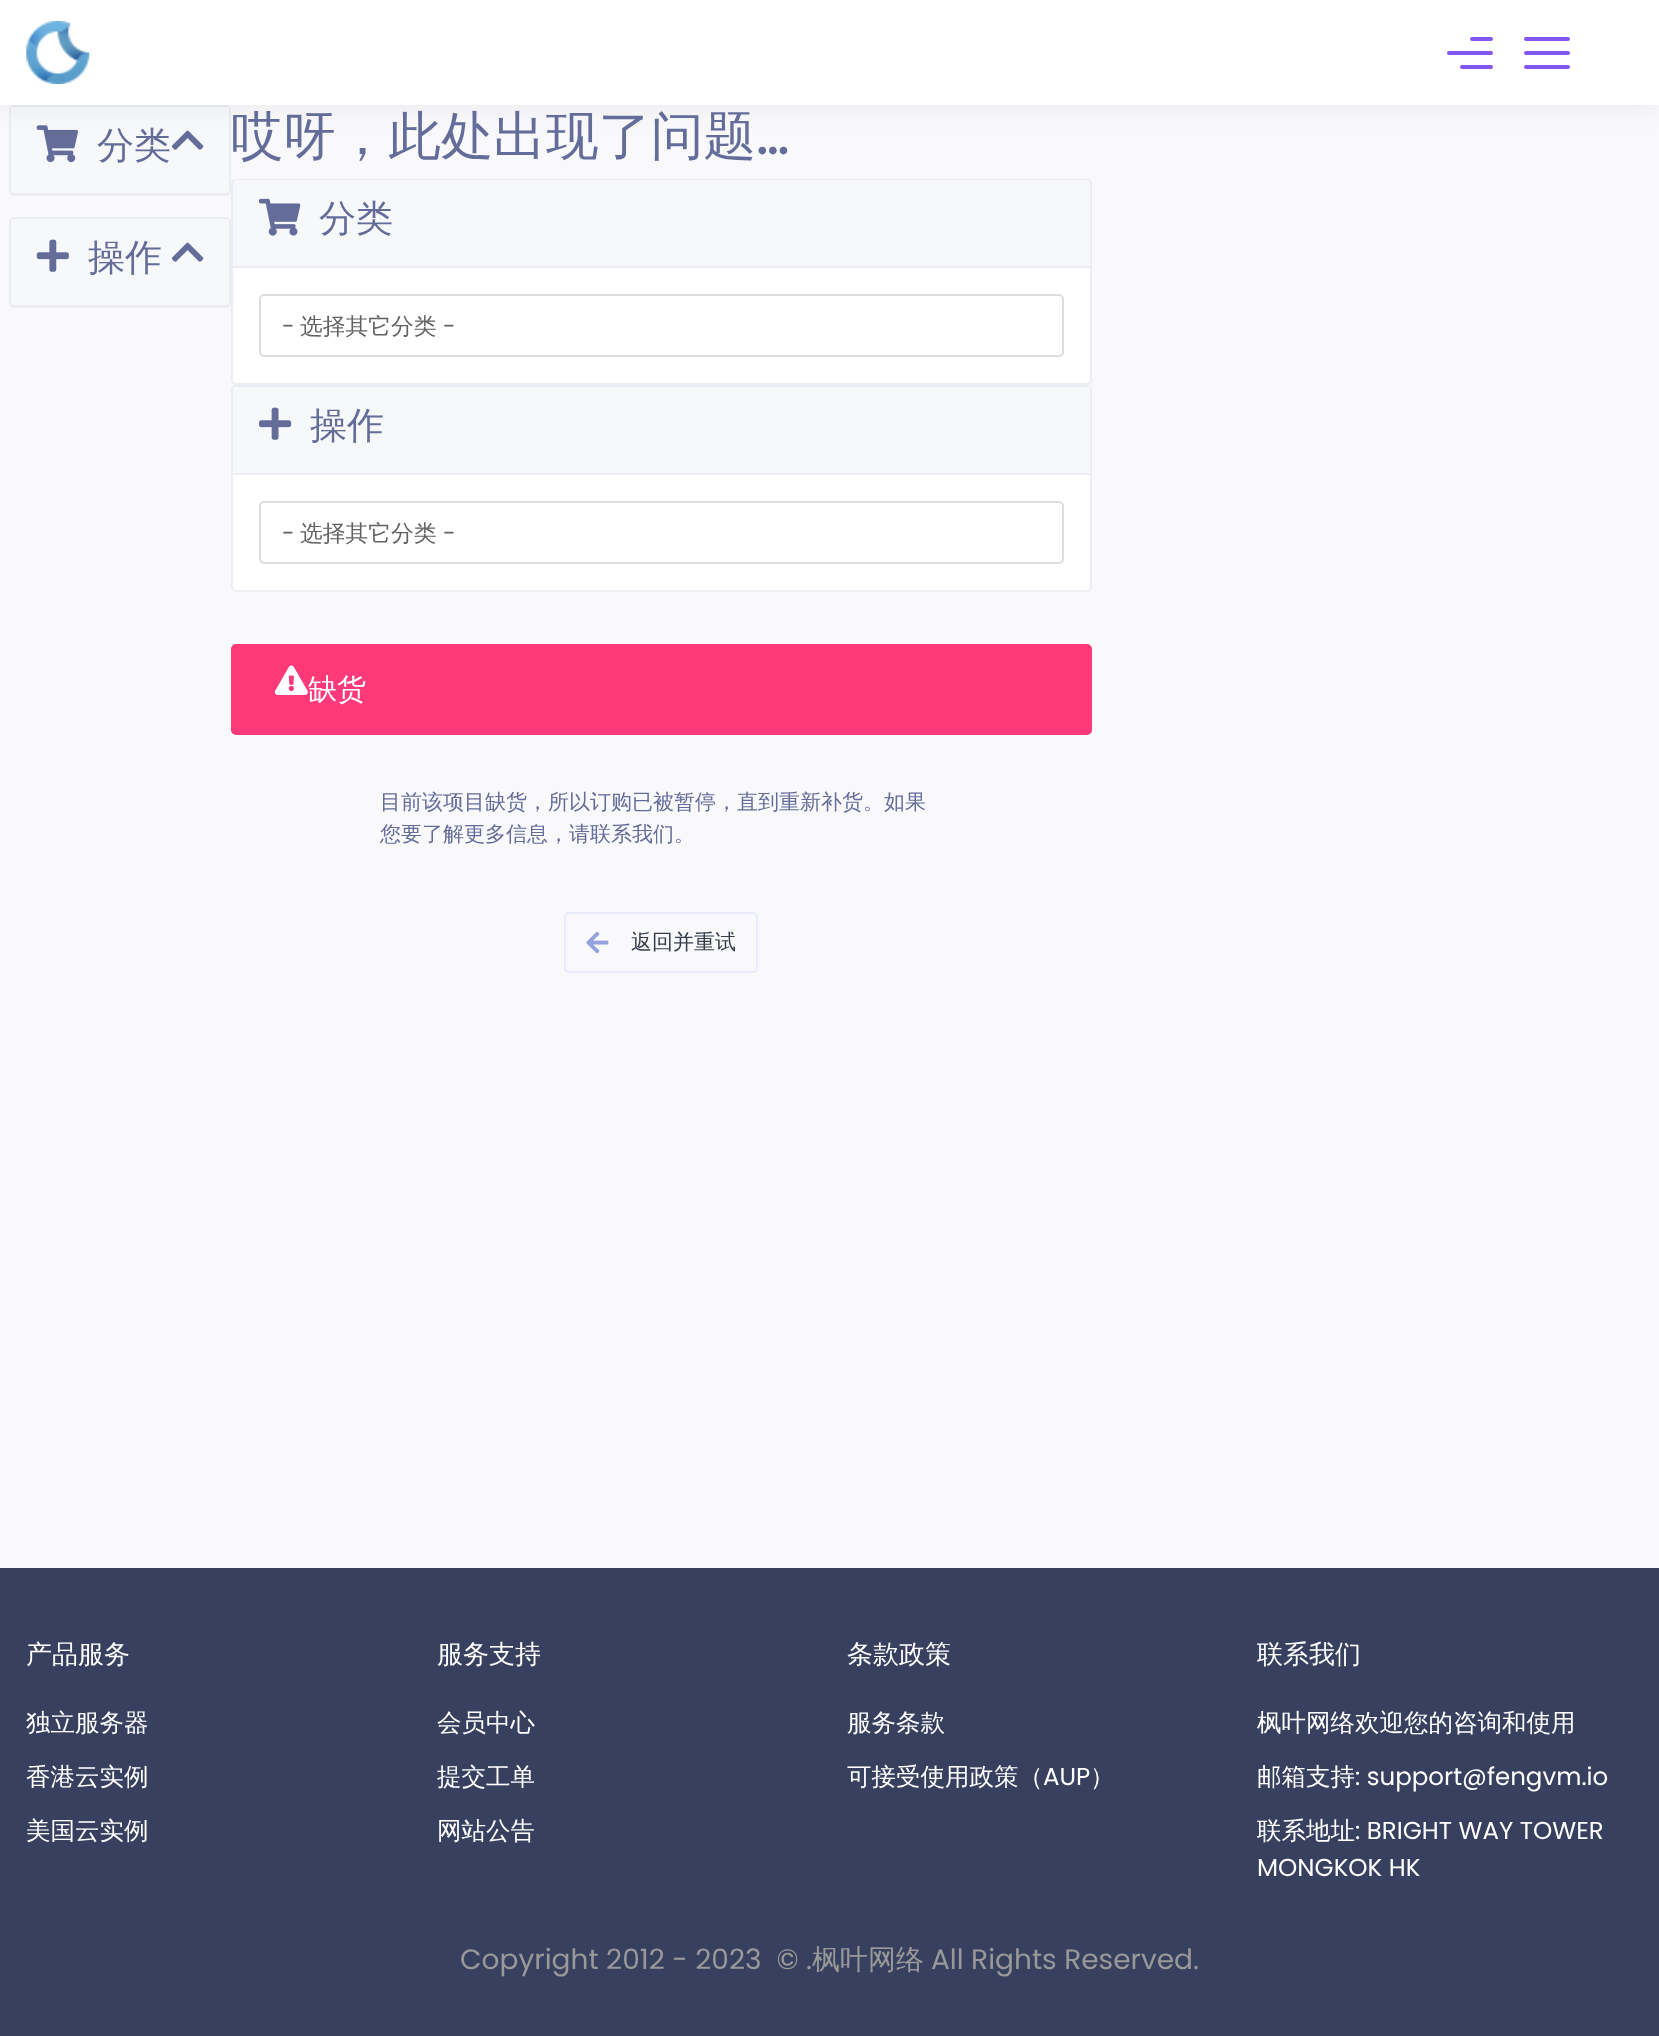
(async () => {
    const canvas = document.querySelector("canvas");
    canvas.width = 1659;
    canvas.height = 2036;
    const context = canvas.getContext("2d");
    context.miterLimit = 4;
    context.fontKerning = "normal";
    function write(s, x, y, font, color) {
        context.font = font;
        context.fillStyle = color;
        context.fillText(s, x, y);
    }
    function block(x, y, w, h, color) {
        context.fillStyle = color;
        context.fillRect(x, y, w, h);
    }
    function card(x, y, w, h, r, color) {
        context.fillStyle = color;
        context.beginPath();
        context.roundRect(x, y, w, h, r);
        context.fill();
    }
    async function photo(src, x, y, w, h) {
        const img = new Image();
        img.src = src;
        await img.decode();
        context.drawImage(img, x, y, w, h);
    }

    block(0, 0, 1659, 2036, "rgb(249, 249, 252)");
    context.fillStyle = "rgb(255, 255, 255)";
    context.beginPath();
    context.roundRect(10, 106, 220, 89, 4);
    context.fill();
    context.strokeStyle = "rgb(235, 237, 242)";
    context.lineWidth = 2;
    context.stroke();
    context.fillStyle = "rgb(247, 248, 250)";
    context.beginPath();
    context.roundRect(11, 107, 218, 87, [4, 4, 0, 0]);
    context.fill();
    await photo("media/2.png", 36, 125, 43, 38);
    await photo("media/3.png", 171, 130, 33, 20);
    context.fillStyle = "rgba(0, 0, 0, 0.05)";
    context.filter = "blur(13px)";
    context.beginPath();
    context.rect(-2, 0, 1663, 109);
    context.fill();
    context.filter = "none";
    block(0, 0, 1659, 105, "rgb(255, 255, 255)");
    await photo("media/1.png", 26, 21, 64, 63);
    card(1447, 51, 46, 4, 2, "rgb(131, 87, 245)");
    card(1470, 37, 23, 4, 2, "rgb(131, 87, 245)");
    card(1460, 65, 33, 4, 2, "rgb(131, 87, 245)");
    card(1524, 51, 46, 4, 2, "rgb(131, 87, 245)");
    card(1524, 37, 46, 4, 2, "rgb(131, 87, 245)");
    card(1524, 65, 46, 4, 2, "rgb(131, 87, 245)");
    block(11, 193, 218, 1, "rgb(235, 237, 242)");
    write("分类", 97, 158, "500 37px WenQuanYi Zen Hei", "rgb(100, 108, 154)");
    context.fillStyle = "rgb(255, 255, 255)";
    context.beginPath();
    context.roundRect(10, 218, 220, 89, 4);
    context.fill();
    context.stroke();
    context.fillStyle = "rgb(247, 248, 250)";
    context.beginPath();
    context.roundRect(11, 219, 218, 87, [4, 4, 0, 0]);
    context.fill();
    block(11, 305, 218, 1, "rgb(235, 237, 242)");
    await photo("media/4.png", 36, 239, 33, 33);
    write("操作", 88, 270, "500 37px WenQuanYi Zen Hei", "rgb(100, 108, 154)");
    await photo("media/3.png", 171, 242, 33, 20);
    write("哎呀，此处出现了问题", 231, 154, "500 52.5px WenQuanYi Zen Hei", "rgb(100, 108, 154)");
    write("…", 756, 154, "500 52.5px Poppins", "rgb(100, 108, 154)");
    context.fillStyle = "rgb(255, 255, 255)";
    context.beginPath();
    context.roundRect(232, 180, 859, 204, 4);
    context.fill();
    context.stroke();
    context.fillStyle = "rgb(247, 248, 250)";
    context.beginPath();
    context.roundRect(233, 180, 857, 88, [4, 4, 0, 0]);
    context.fill();
    block(233, 266, 857, 2, "rgb(235, 237, 242)");
    await photo("media/5.png", 259, 198, 42, 38);
    write("分类", 319, 231, "500 37px WenQuanYi Zen Hei", "rgb(100, 108, 154)");
    context.beginPath();
    context.roundRect(260, 295, 803, 61, 4);
    context.strokeStyle = "rgb(221, 221, 221)";
    context.stroke();
    write("-", 282, 334, "22.75px Poppins", "rgb(98, 98, 98)");
    write("选择其它分类", 300, 334, "500 22.75px WenQuanYi Zen Hei", "rgb(98, 98, 98)");
    write("-", 443, 334, "22.75px Poppins", "rgb(98, 98, 98)");
    context.fillStyle = "rgb(255, 255, 255)";
    context.beginPath();
    context.roundRect(232, 386, 859, 205, 4);
    context.fill();
    context.strokeStyle = "rgb(235, 237, 242)";
    context.stroke();
    context.fillStyle = "rgb(247, 248, 250)";
    context.beginPath();
    context.roundRect(233, 387, 857, 87, [4, 4, 0, 0]);
    context.fill();
    block(233, 473, 857, 2, "rgb(235, 237, 242)");
    await photo("media/6.png", 259, 407, 33, 33);
    write("操作", 310, 438, "500 37px WenQuanYi Zen Hei", "rgb(100, 108, 154)");
    context.beginPath();
    context.roundRect(260, 502, 803, 61, 4);
    context.strokeStyle = "rgb(221, 221, 221)";
    context.stroke();
    write("-", 282, 541, "22.75px Poppins", "rgb(98, 98, 98)");
    write("选择其它分类", 300, 541, "500 22.75px WenQuanYi Zen Hei", "rgb(98, 98, 98)");
    write("-", 443, 541, "22.75px Poppins", "rgb(98, 98, 98)");
    context.fillStyle = "rgb(253, 57, 122)";
    context.beginPath();
    context.roundRect(232, 645, 859, 89, 4);
    context.fill();
    context.strokeStyle = "rgb(253, 57, 122)";
    context.stroke();
    await photo("media/7.png", 274, 665, 34, 30);
    write("缺货", 308, 699, "500 29px WenQuanYi Zen Hei", "rgb(255, 255, 255)");
    write("目前该项目缺货，所以订购已被暂停，直到重新补货。如果", 380, 809, "500 21px WenQuanYi Zen Hei", "rgb(100, 108, 154)");
    write("您要了解更多信息，请联系我们。", 380, 841, "500 21px WenQuanYi Zen Hei", "rgb(100, 108, 154)");
    context.beginPath();
    context.roundRect(565, 913, 192, 59, 4);
    context.strokeStyle = "rgb(232, 236, 250)";
    context.stroke();
    await photo("media/8.png", 586, 931, 23, 23);
    write("返回并重试", 631, 949, "500 21px WenQuanYi Zen Hei", "rgb(51, 60, 72)");
    block(0, 1568, 1659, 468, "rgb(55, 64, 94)");
    write("产品服务", 26, 1663, "500 26px WenQuanYi Zen Hei", "rgb(255, 255, 255)");
    write("独立服务器", 26, 1731, "500 24.5px WenQuanYi Zen Hei", "rgb(255, 255, 255)");
    write("香港云实例", 26, 1785, "500 24.5px WenQuanYi Zen Hei", "rgb(255, 255, 255)");
    write("美国云实例", 26, 1839, "500 24.5px WenQuanYi Zen Hei", "rgb(255, 255, 255)");
    write("服务支持", 437, 1663, "500 26px WenQuanYi Zen Hei", "rgb(255, 255, 255)");
    write("会员中心", 437, 1731, "500 24.5px WenQuanYi Zen Hei", "rgb(255, 255, 255)");
    write("提交工单", 437, 1785, "500 24.5px WenQuanYi Zen Hei", "rgb(255, 255, 255)");
    write("网站公告", 437, 1839, "500 24.5px WenQuanYi Zen Hei", "rgb(255, 255, 255)");
    write("条款政策", 847, 1663, "500 26px WenQuanYi Zen Hei", "rgb(255, 255, 255)");
    write("服务条款", 847, 1731, "500 24.5px WenQuanYi Zen Hei", "rgb(255, 255, 255)");
    write("可接受使用政策（", 847, 1785, "500 24.5px WenQuanYi Zen Hei", "rgb(255, 255, 255)");
    write("AUP", 1043, 1785, "24.5px Poppins", "rgb(255, 255, 255)");
    write("）", 1090, 1785, "500 24.5px WenQuanYi Zen Hei", "rgb(255, 255, 255)");
    write("联系我们", 1257, 1663, "500 26px WenQuanYi Zen Hei", "rgb(255, 255, 255)");
    write("枫叶网络欢迎您的咨询和使用", 1257, 1731, "500 24.5px WenQuanYi Zen Hei", "rgb(255, 255, 255)");
    write("邮箱支持", 1257, 1785, "500 24.5px WenQuanYi Zen Hei", "rgb(255, 255, 255)");
    write(": support@fengvm.io", 1355, 1785, "24.5px Poppins", "rgb(255, 255, 255)");
    write("联系地址", 1257, 1839, "500 24.5px WenQuanYi Zen Hei", "rgb(255, 255, 255)");
    write(": BRIGHT WAY TOWER", 1355, 1839, "24.5px Poppins", "rgb(255, 255, 255)");
    write("MONGKOK HK", 1257, 1876, "24.5px Poppins", "rgb(255, 255, 255)");
    write("Copyright 2012 - 2023  © .", 460, 1969, "28px Poppins", "rgb(153, 153, 153)");
    write("枫叶网络", 812, 1969, "500 28px WenQuanYi Zen Hei", "rgb(153, 153, 153)");
    write("All Rights Reserved.", 931, 1969, "28px Poppins", "rgb(153, 153, 153)");
})();
